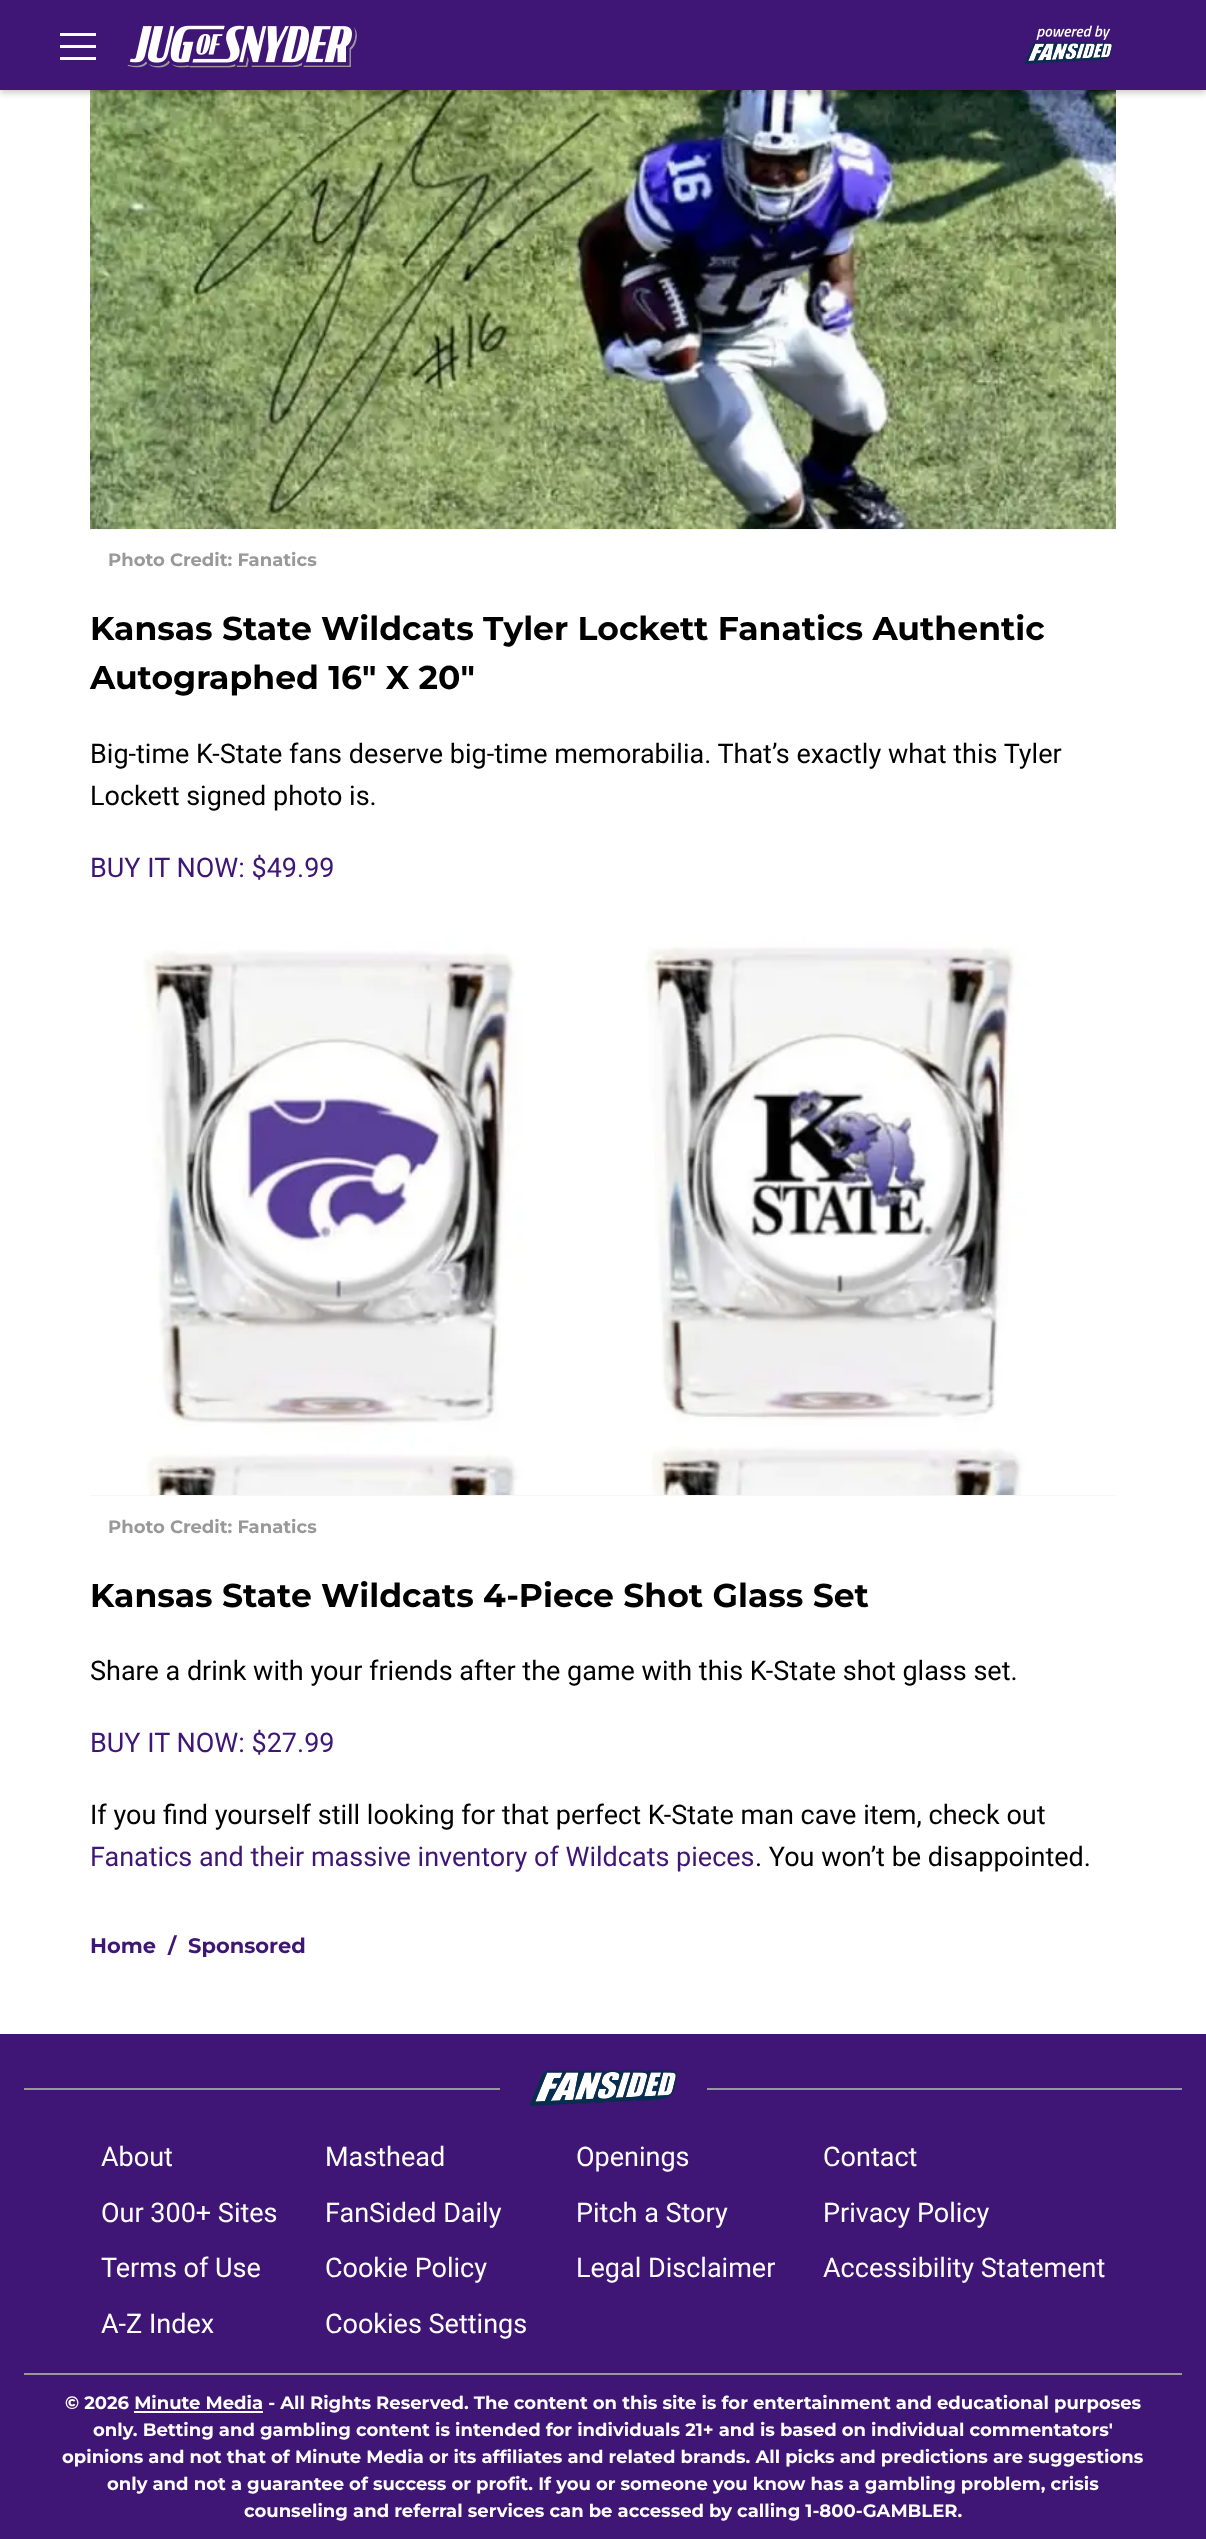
(async () => {
    const canvas = document.querySelector("canvas");
    canvas.width = 1206;
    canvas.height = 2539;
    const context = canvas.getContext("2d");
    context.miterLimit = 4;
    context.fontKerning = "normal";
    function write(s, x, y, font, color) {
        context.font = font;
        context.fillStyle = color;
        context.fillText(s, x, y);
    }
    function block(x, y, w, h, color) {
        context.fillStyle = color;
        context.fillRect(x, y, w, h);
    }
    async function photo(src, x, y, w, h) {
        const img = new Image();
        img.src = src;
        await img.decode();
        context.drawImage(img, x, y, w, h);
    }

    block(0, 0, 1206, 2539, "rgb(255, 255, 255)");
    await photo("media/3.png", 90, 90, 1026, 439);
    context.fillStyle = "rgba(0, 0, 0, 0.2)";
    context.filter = "blur(3px)";
    context.beginPath();
    context.rect(0, 3, 1206, 90);
    context.fill();
    context.filter = "none";
    block(0, 0, 1206, 90, "rgb(63, 21, 117)");
    block(60, 33, 36, 3, "rgb(255, 255, 255)");
    block(60, 45, 36, 3, "rgb(255, 255, 255)");
    block(60, 57, 36, 3, "rgb(255, 255, 255)");
    await photo("media/1.png", 127, 25, 230, 43);
    await photo("media/2.png", 1025, 25, 88, 39);
    block(90, 529, 1026, 1, "rgb(247, 247, 247)");
    write("Photo Credit: Fanatics", 108, 566, "100 18px Montserrat", "rgb(153, 153, 153)");
    write("Kansas State Wildcats Tyler Lockett Fanatics Authentic", 90, 640, "100 33px Montserrat", "rgb(0, 0, 0)");
    write("Autographed 16″ X 20″", 90, 689, "100 33px Montserrat", "rgb(0, 0, 0)");
    write("Big-time K-State fans deserve big-time memorabilia. That’s exactly what this Tyler", 90, 763, "27px Roboto", "rgb(0, 0, 0)");
    write("Lockett signed photo is.", 90, 805, "27px Roboto", "rgb(0, 0, 0)");
    write("BUY IT NOW: $49.99", 90, 877, "27px Roboto", "rgb(63, 21, 117)");
    block(90, 1495, 1026, 1, "rgb(247, 247, 247)");
    await photo("media/4.png", 90, 920, 1026, 575);
    write("Photo Credit: Fanatics", 108, 1533, "100 18px Montserrat", "rgb(153, 153, 153)");
    write("Kansas State Wildcats 4-Piece Shot Glass Set", 90, 1607, "100 33px Montserrat", "rgb(0, 0, 0)");
    write("Share a drink with your friends after the game with this K-State shot glass set.", 90, 1680, "27px Roboto", "rgb(0, 0, 0)");
    write("BUY IT NOW: $27.99", 90, 1752, "27px Roboto", "rgb(63, 21, 117)");
    write("If you find yourself still looking for that perfect K-State man cave item, check out", 90, 1824, "27px Roboto", "rgb(0, 0, 0)");
    write("Fanatics and their massive inventory of Wildcats pieces", 90, 1866, "27px Roboto", "rgb(63, 21, 117)");
    write(". You won’t be disappointed.", 755, 1866, "27px Roboto", "rgb(0, 0, 0)");
    write("Home", 90, 1953, "100 21px Montserrat", "rgb(63, 21, 117)");
    write("/", 168, 1953, "100 21px Montserrat", "rgb(63, 21, 117)");
    write("Sponsored", 188, 1953, "100 21px Montserrat", "rgb(63, 21, 117)");
    block(0, 2034, 1206, 505, "rgb(63, 21, 117)");
    block(24, 2088, 476, 2, "rgb(153, 153, 153)");
    await photo("media/5.png", 530, 2070, 147, 36);
    block(707, 2088, 475, 2, "rgb(153, 153, 153)");
    write("About", 101, 2166, "27px Roboto", "rgb(255, 255, 255)");
    write("Masthead", 325, 2166, "27px Roboto", "rgb(255, 255, 255)");
    write("Openings", 576, 2166, "27px Roboto", "rgb(255, 255, 255)");
    write("Contact", 823, 2166, "27px Roboto", "rgb(255, 255, 255)");
    write("Our 300+ Sites", 101, 2222, "27px Roboto", "rgb(255, 255, 255)");
    write("FanSided Daily", 325, 2222, "27px Roboto", "rgb(255, 255, 255)");
    write("Pitch a Story", 576, 2222, "27px Roboto", "rgb(255, 255, 255)");
    write("Privacy Policy", 823, 2222, "27px Roboto", "rgb(255, 255, 255)");
    write("Terms of Use", 101, 2277, "27px Roboto", "rgb(255, 255, 255)");
    write("Cookie Policy", 325, 2277, "27px Roboto", "rgb(255, 255, 255)");
    write("Legal Disclaimer", 576, 2277, "27px Roboto", "rgb(255, 255, 255)");
    write("Accessibility Statement", 823, 2277, "27px Roboto", "rgb(255, 255, 255)");
    write("A-Z Index", 101, 2333, "27px Roboto", "rgb(255, 255, 255)");
    write("Cookies Settings", 325, 2333, "27px Roboto", "rgb(255, 255, 255)");
    block(24, 2373, 1158, 2, "rgb(153, 153, 153)");
    write("© 2026 Minute Media - All Rights Reserved. The content on this site is for entertainment and educational purposes", 65, 2409, "100 18px Montserrat", "rgb(255, 255, 255)");
    block(134, 2411, 129, 2, "rgb(255, 255, 255)");
    write("only. Betting and gambling content is intended for individuals 21+ and is based on individual commentators'", 93, 2436, "100 18px Montserrat", "rgb(255, 255, 255)");
    write("opinions and not that of Minute Media or its affiliates and related brands. All picks and predictions are suggestions", 62, 2463, "100 18px Montserrat", "rgb(255, 255, 255)");
    write("only and not a guarantee of success or profit. If you or someone you know has a gambling problem, crisis", 107, 2490, "100 18px Montserrat", "rgb(255, 255, 255)");
    write("counseling and referral services can be accessed by calling 1-800-GAMBLER.", 244, 2517, "100 18px Montserrat", "rgb(255, 255, 255)");
})();
